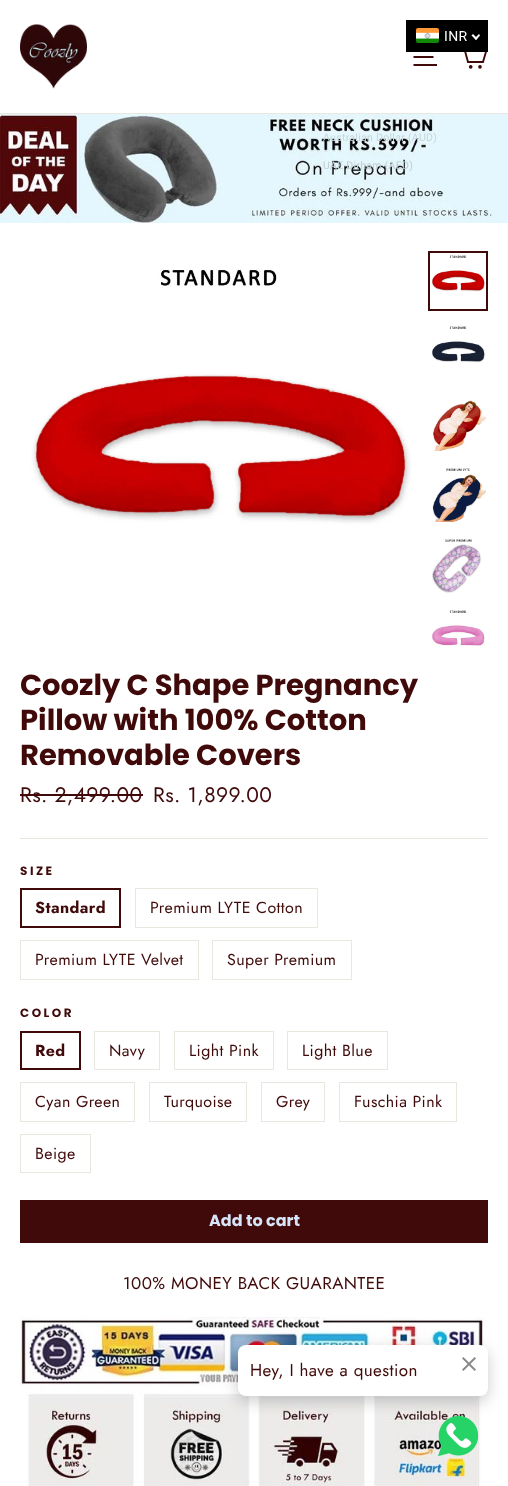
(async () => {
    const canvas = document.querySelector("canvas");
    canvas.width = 508;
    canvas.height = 1486;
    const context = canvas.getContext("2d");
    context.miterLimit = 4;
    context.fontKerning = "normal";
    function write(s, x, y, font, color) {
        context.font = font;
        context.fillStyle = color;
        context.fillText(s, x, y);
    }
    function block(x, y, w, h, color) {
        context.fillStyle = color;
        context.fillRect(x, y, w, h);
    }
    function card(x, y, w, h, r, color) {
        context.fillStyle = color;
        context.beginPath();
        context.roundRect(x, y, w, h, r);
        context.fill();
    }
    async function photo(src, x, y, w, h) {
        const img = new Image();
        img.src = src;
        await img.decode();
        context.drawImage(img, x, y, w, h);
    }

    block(0, 0, 508, 1486, "rgb(255, 255, 255)");
    context.beginPath();
    context.moveTo(413.5, 49);
    context.lineTo(437, 49);
    context.moveTo(413.5, 57);
    context.lineTo(433.5, 57);
    context.moveTo(413.5, 65);
    context.lineTo(437, 65);
    context.strokeStyle = "rgb(64, 10, 10)";
    context.lineWidth = 1.9;
    context.stroke();
    context.beginPath();
    context.moveTo(464.5, 50);
    context.lineTo(486.5, 50);
    context.lineTo(483, 62);
    context.lineTo(468, 62);
    context.lineTo(463.5, 45.5);
    context.lineTo(459.5, 45.5);
    context.stroke();
    block(406, 20, 82, 32, "rgb(0, 0, 0)");
    await photo("media/1.png", 416, 28, 23, 15);
    context.letterSpacing = "0.4px";
    write("INR", 444, 41, "14px Roboto", "rgb(255, 255, 255)");
    context.beginPath();
    context.moveTo(479, 34);
    context.lineTo(480, 35.5);
    context.lineTo(476, 40);
    context.lineTo(474.5, 38.5);
    context.closePath();
    context.fill();
    context.beginPath();
    context.moveTo(473, 34);
    context.lineTo(477.5, 38.5);
    context.lineTo(476, 40);
    context.lineTo(471.5, 35.5);
    context.closePath();
    context.fill();
    await photo("media/3.png", 0, 114, 508, 109);
    context.letterSpacing = "0.3px";
    write("Australian Dollar (AUD)", 323, 141, "10.5px Roboto", "rgb(198, 215, 220)");
    write("UAE Dirham (AED)", 323, 169, "10.5px Roboto", "rgb(191, 206, 210)");
    block(0, 113, 508, 1, "rgb(232, 232, 225)");
    await photo("media/2.png", 20, 24, 67, 65);
    context.beginPath();
    context.arc(470.7, 66.8, 0.9, 0, Math.PI * 2);
    context.stroke();
    context.beginPath();
    context.arc(480, 66.8, 0.9, 0, Math.PI * 2);
    context.stroke();
    await photo("media/4.png", 20, 251, 397, 397);
    context.lineWidth = 2;
    context.strokeRect(429, 252, 58, 58);
    await photo("media/5.png", 430, 253, 56, 56);
    await photo("media/6.png", 430, 324, 56, 56);
    await photo("media/7.png", 430, 395, 56, 56);
    await photo("media/8.png", 430, 466, 56, 56);
    await photo("media/9.png", 430, 537, 56, 56);
    await photo("media/10.png", 430, 608, 56, 40);
    context.letterSpacing = "0px";
    write("Coozly C Shape Pregnancy", 20, 695, "bold 29px Poppins", "rgb(64, 10, 10)");
    write("Pillow with 100% Cotton", 20, 730, "bold 29px Poppins", "rgb(64, 10, 10)");
    write("Removable Covers", 20, 765, "bold 29px Poppins", "rgb(64, 10, 10)");
    context.letterSpacing = "0.4px";
    write("Rs. 2,499.00", 20, 802, "21px Jost", "rgb(64, 10, 10)");
    block(20, 794, 123, 2, "rgb(64, 10, 10)");
    write("Rs. 1,899.00", 153, 802, "21px Jost", "rgb(64, 10, 10)");
    block(20, 838, 468, 1, "rgb(232, 232, 225)");
    context.letterSpacing = "2.5px";
    write("SIZE", 20, 875, "bold 12px Poppins", "rgb(64, 10, 10)");
    context.strokeRect(21, 889, 99, 38);
    context.letterSpacing = "0.4px";
    write("Standard", 35, 913, "bold 16px Jost", "rgb(64, 10, 10)");
    context.strokeStyle = "rgb(232, 232, 225)";
    context.lineWidth = 1;
    context.strokeRect(135.5, 888.5, 182, 39);
    write("Premium LYTE Cotton", 150, 913, "16px Jost", "rgb(64, 10, 10)");
    context.strokeRect(20.5, 940.5, 178, 39);
    write("Premium LYTE Velvet", 35, 965, "16px Jost", "rgb(64, 10, 10)");
    context.strokeRect(212.5, 940.5, 139, 39);
    write("Super Premium", 227, 965, "16px Jost", "rgb(64, 10, 10)");
    context.letterSpacing = "2.5px";
    write("COLOR", 20, 1017, "bold 12px Poppins", "rgb(64, 10, 10)");
    context.strokeStyle = "rgb(64, 10, 10)";
    context.lineWidth = 2;
    context.strokeRect(21, 1032, 59, 37);
    context.letterSpacing = "0.4px";
    write("Red", 35, 1056, "bold 16px Jost", "rgb(64, 10, 10)");
    context.strokeStyle = "rgb(232, 232, 225)";
    context.lineWidth = 1;
    context.strokeRect(94.5, 1031.5, 65, 38);
    write("Navy", 109, 1056, "16px Jost", "rgb(64, 10, 10)");
    context.strokeRect(174.5, 1031.5, 99, 38);
    write("Light Pink", 189, 1056, "16px Jost", "rgb(64, 10, 10)");
    context.strokeRect(287.5, 1031.5, 100, 38);
    write("Light Blue", 302, 1056, "16px Jost", "rgb(64, 10, 10)");
    context.strokeRect(20.5, 1082.5, 114, 39);
    write("Cyan Green", 35, 1107, "16px Jost", "rgb(64, 10, 10)");
    context.strokeRect(149.5, 1082.5, 97, 39);
    write("Turquoise", 164, 1107, "16px Jost", "rgb(64, 10, 10)");
    context.strokeRect(261.5, 1082.5, 63, 39);
    write("Grey", 276, 1107, "16px Jost", "rgb(64, 10, 10)");
    context.strokeRect(339.5, 1082.5, 117, 39);
    write("Fuschia Pink", 354, 1107, "16px Jost", "rgb(64, 10, 10)");
    context.strokeRect(20.5, 1134.5, 70, 38);
    write("Beige", 35, 1159, "16px Jost", "rgb(64, 10, 10)");
    block(20, 1200, 468, 43, "rgb(64, 10, 10)");
    context.letterSpacing = "0px";
    write("Add to cart", 209, 1226, "bold 16px Poppins", "rgb(215, 229, 249)");
    context.letterSpacing = "0.4px";
    write("100% MONEY BACK GUARANTEE", 123, 1289, "17px Jost", "rgb(64, 10, 10)");
    await photo("media/11.png", 20, 1317, 465, 169);
    await photo("media/13.png", 438, 1416, 40, 40);
    context.fillStyle = "rgba(0, 0, 0, 0.2)";
    context.filter = "blur(7.5px)";
    context.beginPath();
    context.roundRect(238, 1350, 250, 51, 8);
    context.fill();
    context.filter = "none";
    card(238, 1345, 250, 51, 8, "rgb(255, 255, 255)");
    write("Hey, I have a question", 250, 1376, "17px Jost", "rgb(64, 10, 10)");
    await photo("media/12.png", 462, 1357, 14, 14);
})();
